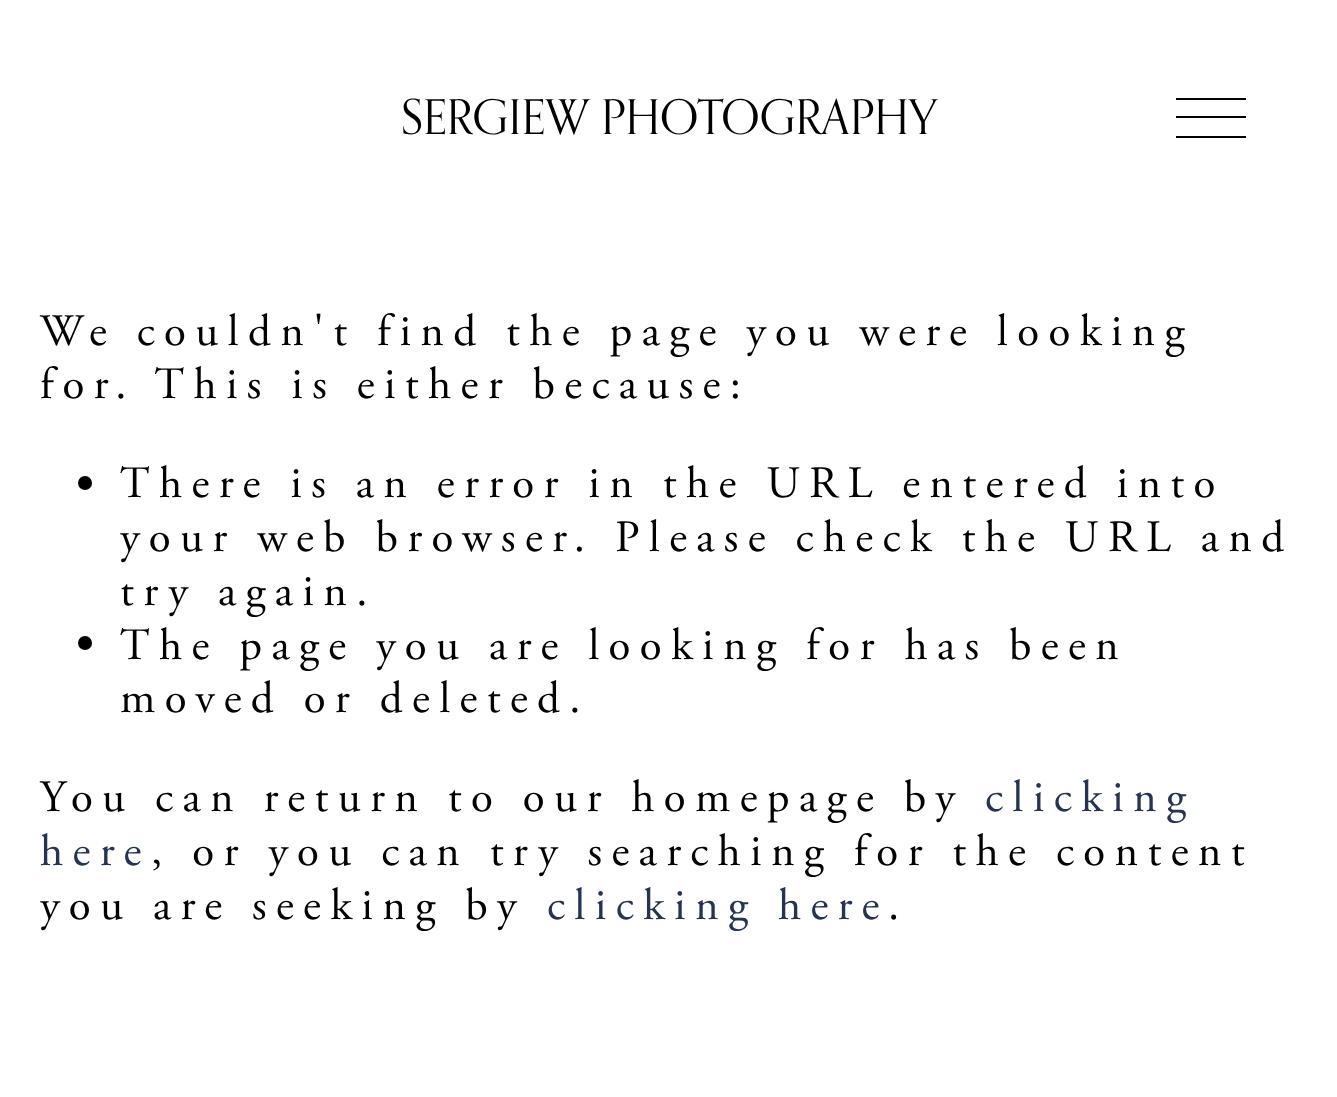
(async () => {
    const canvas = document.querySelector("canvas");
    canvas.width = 1337;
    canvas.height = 1097;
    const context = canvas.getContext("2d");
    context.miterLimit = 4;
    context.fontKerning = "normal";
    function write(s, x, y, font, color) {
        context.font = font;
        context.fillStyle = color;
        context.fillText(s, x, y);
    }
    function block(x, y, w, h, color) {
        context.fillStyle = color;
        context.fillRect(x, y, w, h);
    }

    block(0, 0, 1337, 1097, "rgb(255, 255, 255)");
    write("SERGIEW PHOTOGRAPHY", 401, 134, "48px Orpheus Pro", "rgb(0, 0, 0)");
    block(1176, 98, 70, 2, "rgb(0, 0, 0)");
    block(1176, 116, 70, 2, "rgb(0, 0, 0)");
    block(1176, 136, 70, 2, "rgb(0, 0, 0)");
    context.letterSpacing = "9.4px";
    write("We couldn't find the page you were looking", 40, 345, "44.85px Adobe Garamond", "rgb(0, 0, 0)");
    write("for. This is either because:", 40, 398, "44.85px Adobe Garamond", "rgb(0, 0, 0)");
    context.beginPath();
    context.arc(85, 483, 7, 0, Math.PI * 2);
    context.fill();
    write("There is an error in the URL entered into", 120, 497, "44.85px Adobe Garamond", "rgb(0, 0, 0)");
    write("your web browser. Please check the URL and", 120, 551, "44.85px Adobe Garamond", "rgb(0, 0, 0)");
    write("try again.", 120, 605, "44.85px Adobe Garamond", "rgb(0, 0, 0)");
    context.beginPath();
    context.arc(85, 643, 7, 0, Math.PI * 2);
    context.fill();
    write("The page you are looking for has been", 120, 659, "44.85px Adobe Garamond", "rgb(0, 0, 0)");
    write("moved or deleted.", 120, 712, "44.85px Adobe Garamond", "rgb(0, 0, 0)");
    write("You can return to our homepage by", 40, 811, "44.85px Adobe Garamond", "rgb(0, 0, 0)");
    write("clicking", 985, 811, "44.85px Adobe Garamond", "rgb(37, 53, 81)");
    write("here", 40, 865, "44.85px Adobe Garamond", "rgb(37, 53, 81)");
    write(", or you can try searching for the", 151, 865, "44.85px Adobe Garamond", "rgb(0, 0, 0)");
    write("content", 1056, 865, "44.85px Adobe Garamond", "rgb(0, 0, 0)");
    write("you are seeking by", 40, 919, "44.85px Adobe Garamond", "rgb(0, 0, 0)");
    write("clicking here", 547, 919, "44.85px Adobe Garamond", "rgb(37, 53, 81)");
    write(".", 888, 919, "44.85px Adobe Garamond", "rgb(0, 0, 0)");
})();
